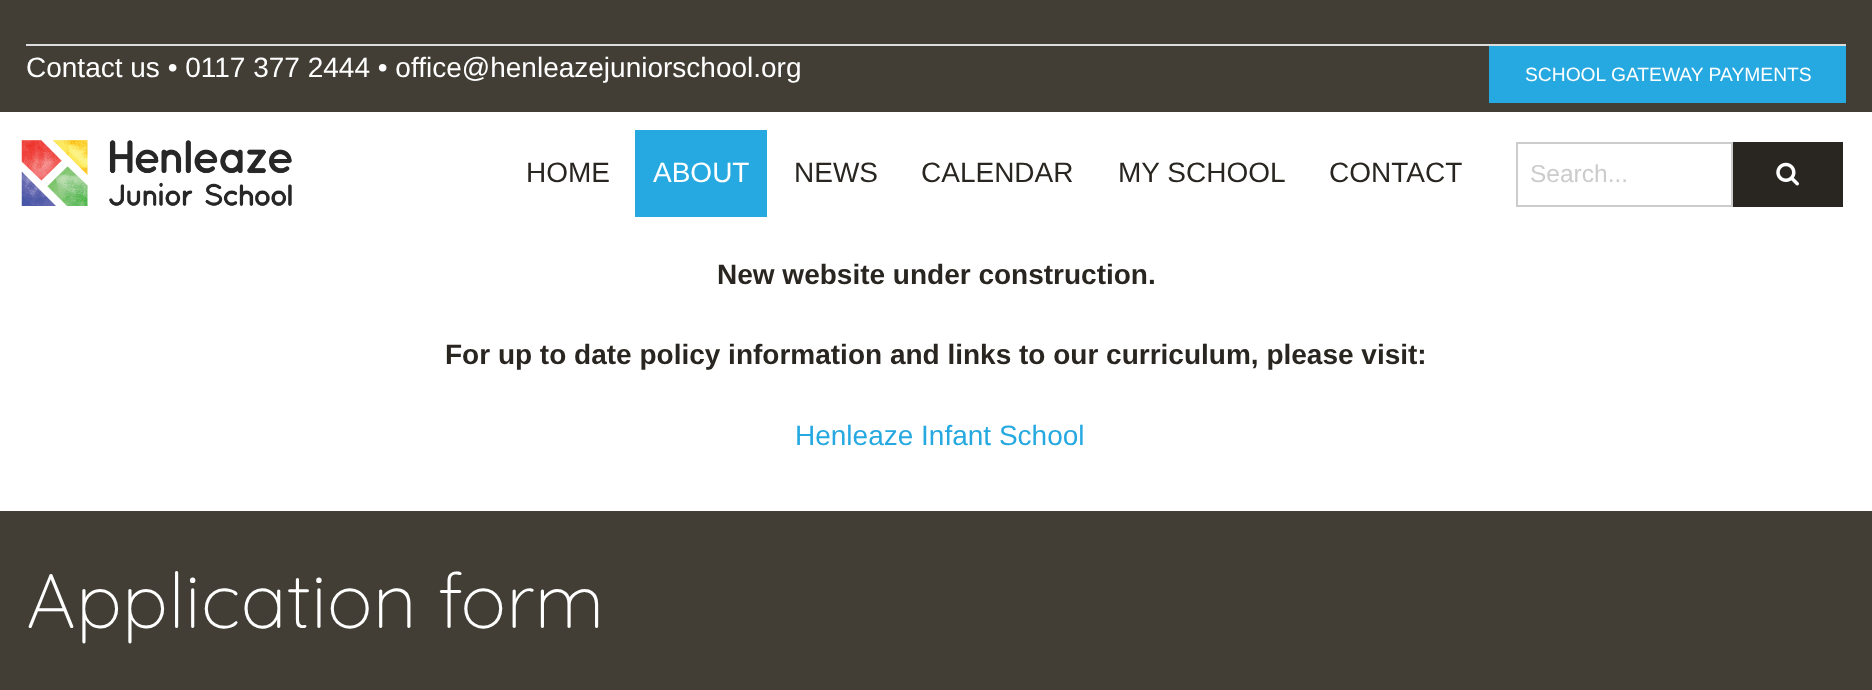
(async () => {
    const canvas = document.querySelector("canvas");
    canvas.width = 1872;
    canvas.height = 690;
    const context = canvas.getContext("2d");
    context.miterLimit = 4;
    context.fontKerning = "normal";
    function write(s, x, y, font, color) {
        context.font = font;
        context.fillStyle = color;
        context.fillText(s, x, y);
    }
    function block(x, y, w, h, color) {
        context.fillStyle = color;
        context.fillRect(x, y, w, h);
    }
    async function photo(src, x, y, w, h) {
        const img = new Image();
        img.src = src;
        await img.decode();
        context.drawImage(img, x, y, w, h);
    }

    block(0, 0, 1872, 690, "rgb(255, 255, 255)");
    block(0, 0, 1872, 112, "rgb(66, 62, 53)");
    block(26, 44, 1820, 2, "rgb(221, 221, 221)");
    write("Contact us • 0117 377 2444 • office@henleazejuniorschool.org", 26, 77, "28px Liberation Sans", "rgb(255, 255, 255)");
    block(1489, 46, 357, 57, "rgb(38, 169, 224)");
    write("SCHOOL GATEWAY PAYMENTS", 1525, 81, "19.25px Liberation Sans", "rgb(255, 255, 255)");
    await photo("media/1.png", 21, 140, 271, 66);
    write("HOME", 526, 182, "28px Liberation Sans", "rgb(41, 38, 33)");
    block(635, 130, 132, 87, "rgb(38, 169, 224)");
    write("ABOUT", 653, 182, "28px Liberation Sans", "rgb(255, 255, 255)");
    write("NEWS", 794, 182, "28px Liberation Sans", "rgb(41, 38, 33)");
    write("CALENDAR", 921, 182, "28px Liberation Sans", "rgb(41, 38, 33)");
    write("MY SCHOOL", 1118, 182, "28px Liberation Sans", "rgb(41, 38, 33)");
    write("CONTACT", 1329, 182, "28px Liberation Sans", "rgb(41, 38, 33)");
    context.strokeStyle = "rgb(204, 204, 204)";
    context.lineWidth = 2;
    context.strokeRect(1517, 143, 215, 63);
    write("Search...", 1530, 182, "24.5px Liberation Sans", "rgb(204, 204, 204)");
    block(1733, 142, 110, 65, "rgb(41, 38, 33)");
    await photo("media/2.png", 1776, 162, 23, 24);
    write("New website under construction.", 717, 284, "bold 28px Liberation Sans", "rgb(41, 38, 33)");
    write("For up to date policy information and links to our curriculum, please visit:", 445, 364, "bold 28px Liberation Sans", "rgb(41, 38, 33)");
    write("Henleaze Infant School", 795, 445, "28px Liberation Sans", "rgb(38, 169, 224)");
    block(0, 511, 1872, 179, "rgb(66, 62, 53)");
    write("Application form", 26, 628, "300 77px Quicksand", "rgb(255, 255, 255)");
})();
